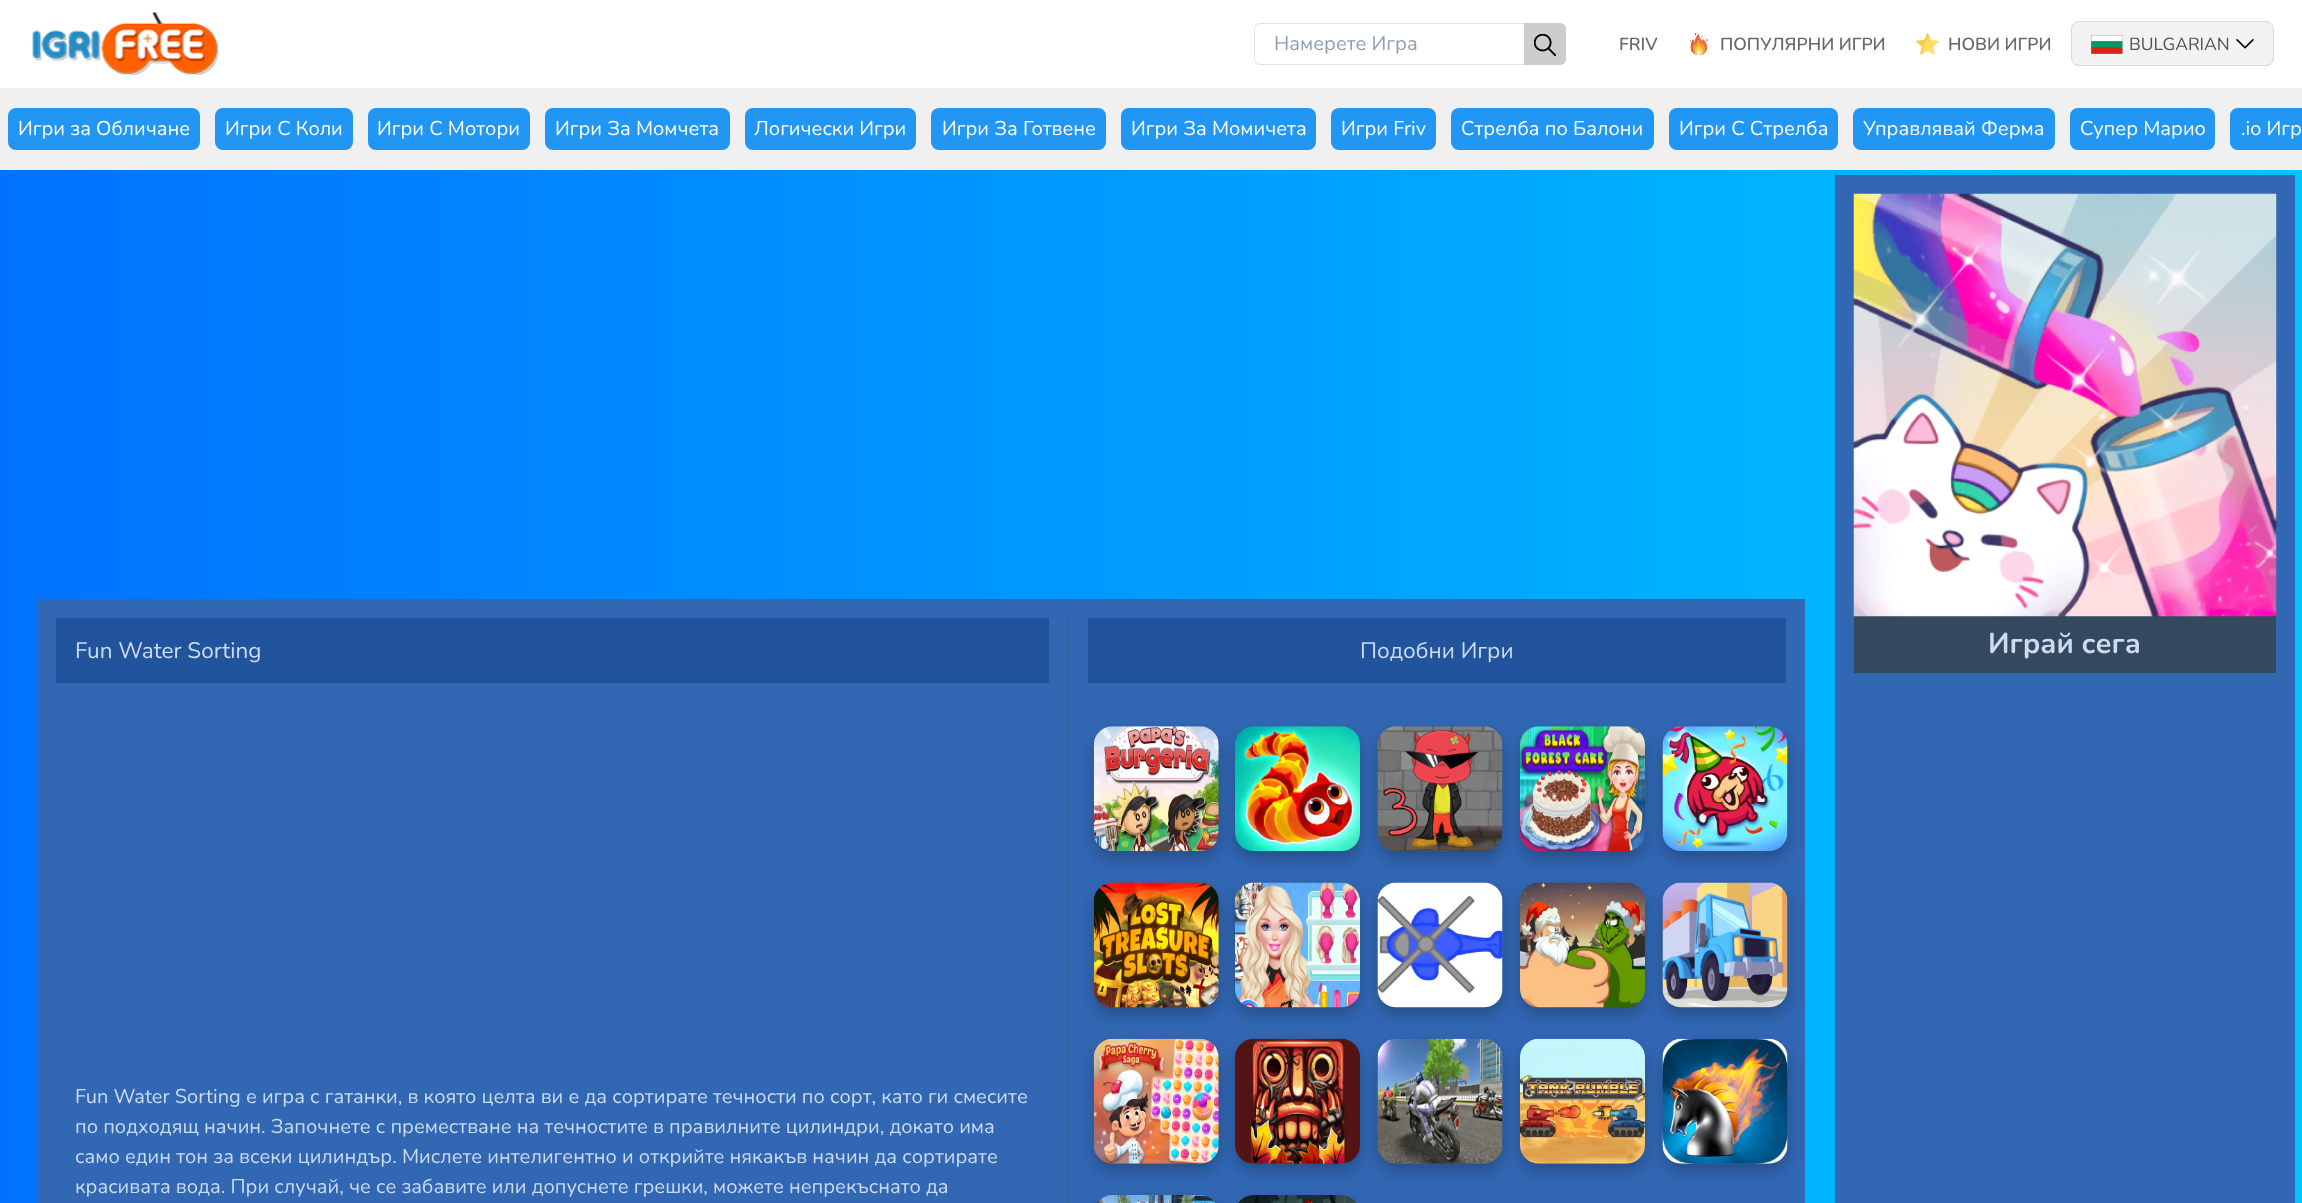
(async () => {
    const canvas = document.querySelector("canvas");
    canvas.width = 2302;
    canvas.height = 1203;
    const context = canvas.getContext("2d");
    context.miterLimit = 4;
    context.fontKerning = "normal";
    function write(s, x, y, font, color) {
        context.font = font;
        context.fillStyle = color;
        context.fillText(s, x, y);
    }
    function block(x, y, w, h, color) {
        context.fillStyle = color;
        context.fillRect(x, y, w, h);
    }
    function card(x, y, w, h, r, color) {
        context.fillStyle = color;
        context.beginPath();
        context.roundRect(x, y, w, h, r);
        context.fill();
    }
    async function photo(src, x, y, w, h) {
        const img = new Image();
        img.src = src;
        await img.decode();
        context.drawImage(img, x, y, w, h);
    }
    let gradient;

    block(0, 0, 2302, 1203, "rgb(255, 255, 255)");
    gradient = context.createLinearGradient(0, 1063, 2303, 1063);
    gradient.addColorStop(0, "rgb(0, 114, 255)");
    gradient.addColorStop(1, "rgb(0, 198, 255)");
    context.fillStyle = gradient;
    context.fillRect(0, 170, 2302, 1033);
    await photo("media/1.png", 32, 12, 187, 63);
    context.beginPath();
    context.roundRect(1254.5, 23.5, 311, 41, 5.5);
    context.strokeStyle = "rgb(226, 226, 226)";
    context.stroke();
    write("Намерете Игра", 1274, 50, "20px Nunito", "rgb(143, 159, 177)");
    context.fillStyle = "rgb(205, 205, 205)";
    context.beginPath();
    context.roundRect(1524, 23, 42, 42, [0, 6, 6, 0]);
    context.fill();
    await photo("media/2.png", 1534, 34, 22, 22);
    write("FRIV", 1619, 50, "600 17.5px Nunito", "rgb(105, 105, 105)");
    await photo("media/3.png", 1689, 33, 19, 22);
    write("ПОПУЛЯРНИ ИГРИ", 1720, 50, "600 17.5px Nunito", "rgb(105, 105, 105)");
    await photo("media/4.png", 1916, 33, 23, 22);
    write("НОВИ ИГРИ", 1948, 50, "600 17.5px Nunito", "rgb(105, 105, 105)");
    context.fillStyle = "rgb(242, 242, 242)";
    context.beginPath();
    context.roundRect(2071.5, 21.5, 202, 44, 7.5);
    context.fill();
    context.strokeStyle = "rgb(217, 217, 217)";
    context.stroke();
    await photo("media/5.png", 2091, 35, 32, 19);
    write("BULGARIAN", 2129, 50, "17.5px Nunito", "rgb(77, 83, 89)");
    await photo("media/6.png", 2236, 39, 18, 10);
    block(0, 88, 2302, 82, "rgb(240, 240, 240)");
    card(8, 108, 192, 42, 8, "rgb(33, 150, 243)");
    write("Игри за Обличане", 18, 135, "20px Nunito", "rgb(255, 255, 255)");
    card(215, 108, 138, 42, 8, "rgb(33, 150, 243)");
    write("Игри С Коли", 225, 135, "20px Nunito", "rgb(255, 255, 255)");
    card(368, 108, 162, 42, 8, "rgb(33, 150, 243)");
    write("Игри С Мотори", 377, 135, "20px Nunito", "rgb(255, 255, 255)");
    card(545, 108, 185, 42, 8, "rgb(33, 150, 243)");
    write("Игри За Момчета", 555, 135, "20px Nunito", "rgb(255, 255, 255)");
    card(745, 108, 171, 42, 8, "rgb(33, 150, 243)");
    write("Логически Игри", 754, 135, "20px Nunito", "rgb(255, 255, 255)");
    card(931, 108, 175, 42, 8, "rgb(33, 150, 243)");
    write("Игри За Готвене", 942, 135, "20px Nunito", "rgb(255, 255, 255)");
    card(1121, 108, 195, 42, 8, "rgb(33, 150, 243)");
    write("Игри За Момичета", 1131, 135, "20px Nunito", "rgb(255, 255, 255)");
    card(1331, 108, 105, 42, 8, "rgb(33, 150, 243)");
    write("Игри Friv", 1341, 135, "20px Nunito", "rgb(255, 255, 255)");
    card(1451, 108, 203, 42, 8, "rgb(33, 150, 243)");
    write("Стрелба по Балони", 1461, 135, "20px Nunito", "rgb(255, 255, 255)");
    card(1669, 108, 169, 42, 8, "rgb(33, 150, 243)");
    write("Игри С Стрелба", 1679, 135, "20px Nunito", "rgb(255, 255, 255)");
    card(1853, 108, 202, 42, 8, "rgb(33, 150, 243)");
    write("Управлявай Ферма", 1863, 135, "20px Nunito", "rgb(255, 255, 255)");
    card(2070, 108, 145, 42, 8, "rgb(33, 150, 243)");
    write("Супер Марио", 2080, 135, "20px Nunito", "rgb(255, 255, 255)");
    context.fillStyle = "rgb(33, 150, 243)";
    context.beginPath();
    context.moveTo(2238, 108);
    context.lineTo(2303, 108);
    context.lineTo(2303, 150);
    context.lineTo(2238, 150);
    context.bezierCurveTo(2233.5, 150, 2230, 146.5, 2230, 142);
    context.lineTo(2230, 116);
    context.bezierCurveTo(2230, 111.5, 2233.5, 108, 2238, 108);
    context.closePath();
    context.fill();
    write(".io Игр", 2241, 135, "20px Nunito", "rgb(255, 255, 255)");
    block(38, 599, 1767, 604, "rgb(50, 103, 180)");
    context.beginPath();
    context.moveTo(1068, 617.5);
    context.lineTo(1068, 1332.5);
    context.strokeStyle = "rgb(62, 87, 112)";
    context.lineWidth = 1.2;
    context.setLineDash([1.25, 1.25]);
    context.stroke();
    block(56, 618, 993, 65, "rgb(34, 84, 157)");
    write("Fun Water Sorting", 75, 658, "22.5px Nunito", "rgb(204, 220, 239)");
    write("Fun Water Sorting е игра с гатанки, в която целта ви е да сортирате течности по сорт, като ги смесите", 75, 1103, "20px Nunito", "rgb(204, 220, 239)");
    write("по подходящ начин. Започнете с преместване на течностите в правилните цилиндри, докато има", 75, 1133, "20px Nunito", "rgb(204, 220, 239)");
    write("само един тон за всеки цилиндър. Мислете интелигентно и открийте някакъв начин да сортирате", 75, 1163, "20px Nunito", "rgb(204, 220, 239)");
    write("красивата вода. При случай, че се забавите или допуснете грешки, можете непрекъснато да", 75, 1193, "20px Nunito", "rgb(204, 220, 239)");
    block(1088, 618, 698, 65, "rgb(34, 84, 157)");
    write("Подобни Игри", 1360, 658, "22.5px Nunito", "rgb(204, 220, 239)");
    context.fillStyle = "rgba(0, 0, 0, 0.24)";
    context.filter = "blur(7.5px)";
    context.beginPath();
    context.roundRect(1094, 734, 125, 125, 19);
    context.fill();
    context.filter = "none";
    await photo("media/7.png", 1093, 726, 126, 126);
    context.filter = "blur(7.5px)";
    context.beginPath();
    context.roundRect(1235, 734, 125, 125, 19);
    context.fill();
    context.filter = "none";
    await photo("media/8.png", 1235, 726, 125, 126);
    context.filter = "blur(7.5px)";
    context.beginPath();
    context.roundRect(1378, 734, 125, 125, 19);
    context.fill();
    context.filter = "none";
    await photo("media/9.png", 1377, 726, 126, 126);
    context.filter = "blur(7.5px)";
    context.beginPath();
    context.roundRect(1520, 734, 125, 125, 19);
    context.fill();
    context.filter = "none";
    await photo("media/10.png", 1520, 726, 125, 126);
    context.filter = "blur(7.5px)";
    context.beginPath();
    context.roundRect(1663, 734, 125, 125, 19);
    context.fill();
    context.filter = "none";
    await photo("media/11.png", 1662, 726, 126, 126);
    context.filter = "blur(7.5px)";
    context.beginPath();
    context.roundRect(1094, 890, 125, 125, 19);
    context.fill();
    context.filter = "none";
    await photo("media/12.png", 1093, 882, 126, 126);
    context.filter = "blur(7.5px)";
    context.beginPath();
    context.roundRect(1235, 890, 125, 125, 19);
    context.fill();
    context.filter = "none";
    await photo("media/13.png", 1235, 882, 125, 126);
    context.filter = "blur(7.5px)";
    context.beginPath();
    context.roundRect(1378, 890, 125, 125, 19);
    context.fill();
    context.filter = "none";
    await photo("media/14.png", 1377, 882, 126, 126);
    context.filter = "blur(7.5px)";
    context.beginPath();
    context.roundRect(1520, 890, 125, 125, 19);
    context.fill();
    context.filter = "none";
    await photo("media/15.png", 1520, 882, 125, 126);
    context.filter = "blur(7.5px)";
    context.beginPath();
    context.roundRect(1663, 890, 125, 125, 19);
    context.fill();
    context.filter = "none";
    await photo("media/16.png", 1662, 882, 126, 126);
    context.filter = "blur(7.5px)";
    context.beginPath();
    context.roundRect(1094, 1046, 125, 125, 19);
    context.fill();
    context.filter = "none";
    await photo("media/17.png", 1093, 1038, 126, 126);
    context.filter = "blur(7.5px)";
    context.beginPath();
    context.roundRect(1235, 1046, 125, 125, 19);
    context.fill();
    context.filter = "none";
    await photo("media/18.png", 1235, 1038, 125, 126);
    context.filter = "blur(7.5px)";
    context.beginPath();
    context.roundRect(1378, 1046, 125, 125, 19);
    context.fill();
    context.filter = "none";
    await photo("media/19.png", 1377, 1038, 126, 126);
    context.filter = "blur(7.5px)";
    context.beginPath();
    context.roundRect(1520, 1046, 125, 125, 19);
    context.fill();
    context.filter = "none";
    await photo("media/20.png", 1520, 1038, 125, 126);
    context.filter = "blur(7.5px)";
    context.beginPath();
    context.roundRect(1663, 1046, 125, 125, 19);
    context.fill();
    context.filter = "none";
    await photo("media/21.png", 1662, 1038, 126, 126);
    context.filter = "blur(7.5px)";
    context.beginPath();
    context.roundRect(1094, 1203, 125, 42, 19);
    context.fill();
    context.filter = "none";
    await photo("media/22.png", 1097, 1195, 119, 8);
    context.filter = "blur(7.5px)";
    context.beginPath();
    context.roundRect(1235, 1203, 125, 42, 19);
    context.fill();
    context.filter = "none";
    await photo("media/23.png", 1238, 1195, 119, 8);
    block(1835, 175, 460, 1028, "rgb(50, 103, 180)");
    block(1854, 616, 422, 57, "rgb(52, 73, 94)");
    await photo("media/24.png", 1853, 193, 424, 424);
    write("Играй сега", 1988, 653, "bold 28.75px Nunito", "rgb(204, 220, 239)");
})();
